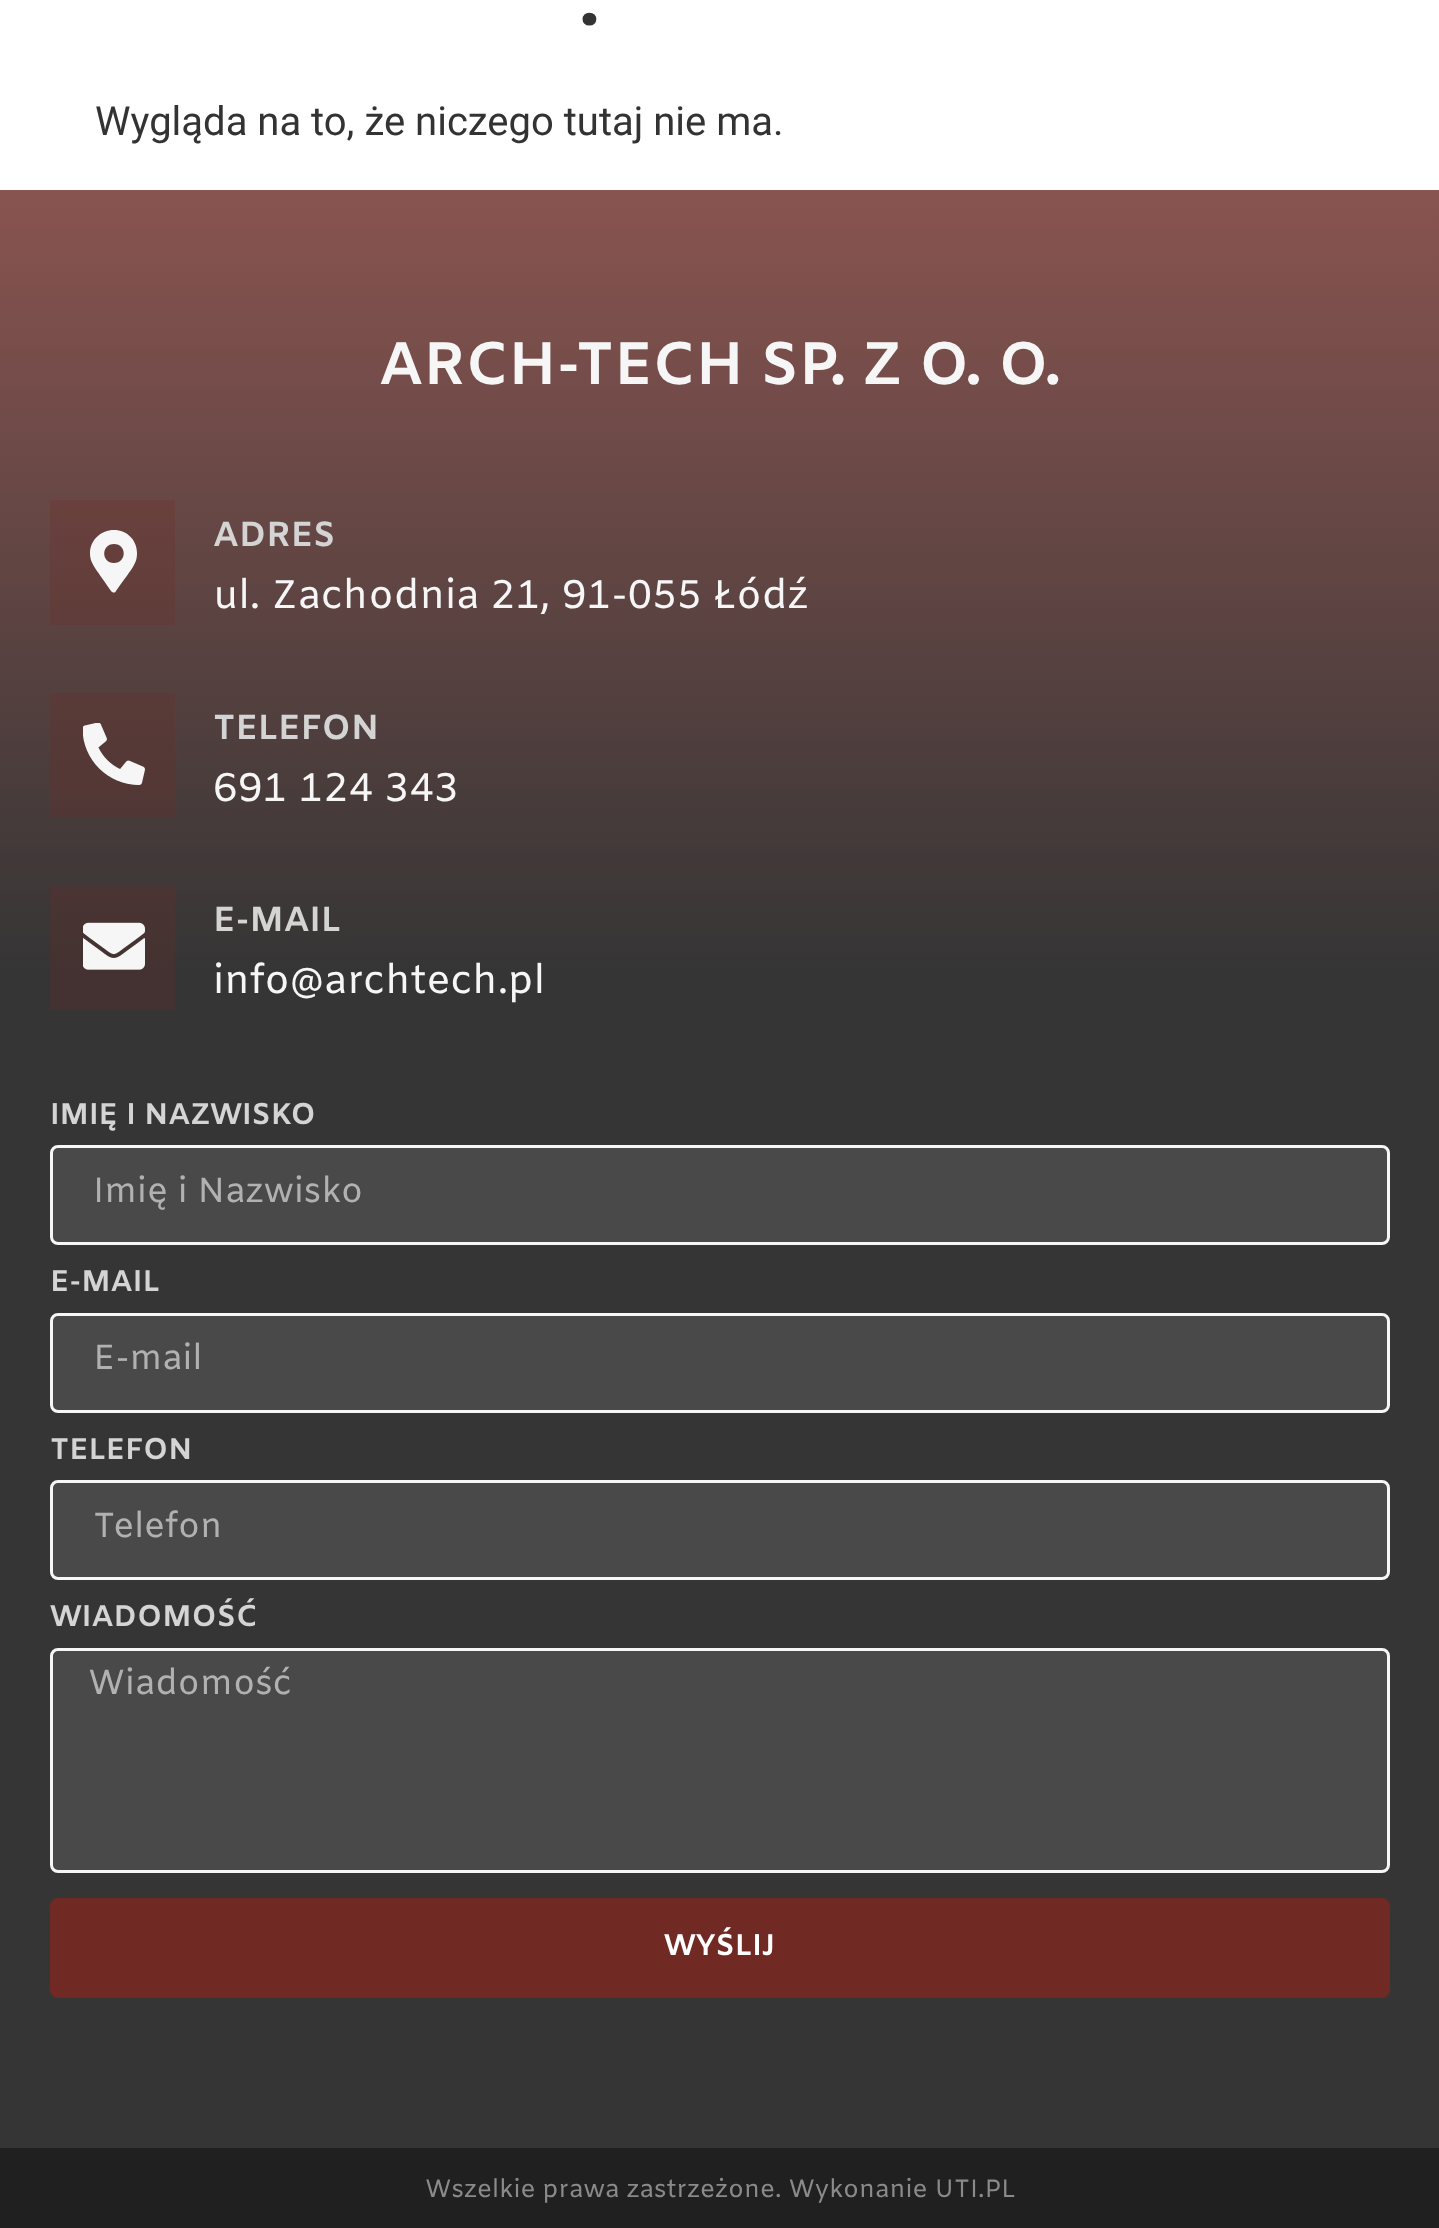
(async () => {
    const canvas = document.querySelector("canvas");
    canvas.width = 1439;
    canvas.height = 2228;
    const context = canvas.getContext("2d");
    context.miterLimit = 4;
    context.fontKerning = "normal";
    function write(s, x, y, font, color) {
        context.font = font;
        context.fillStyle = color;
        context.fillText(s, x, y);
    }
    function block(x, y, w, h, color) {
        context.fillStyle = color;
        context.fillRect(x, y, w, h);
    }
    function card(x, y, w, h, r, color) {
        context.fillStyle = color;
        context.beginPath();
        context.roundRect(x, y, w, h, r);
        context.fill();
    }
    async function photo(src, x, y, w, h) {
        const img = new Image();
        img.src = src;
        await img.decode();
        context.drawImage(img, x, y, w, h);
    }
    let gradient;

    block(0, 0, 1439, 2228, "rgb(255, 255, 255)");
    write(".", 576, 25, "500 100px Roboto", "rgb(51, 51, 51)");
    write("Wygląda na to, że niczego tutaj nie ma.", 95, 135, "40px Roboto", "rgb(51, 51, 51)");
    gradient = context.createLinearGradient(720, 2148, 720, 190);
    gradient.addColorStop(0.6, "rgb(53, 53, 53)");
    gradient.addColorStop(1, "rgb(137, 84, 80)");
    context.fillStyle = gradient;
    context.fillRect(0, 190, 1439, 1958);
    gradient = context.createLinearGradient(720, 2148, 720, 190);
    gradient.addColorStop(0.6, "rgb(67, 50, 49)");
    gradient.addColorStop(1, "rgb(131, 74, 69)");
    context.fillStyle = gradient;
    context.fillRect(50, 885, 125, 125);
    context.fillRect(50, 693, 125, 125);
    context.fillRect(50, 500, 125, 125);
    write("ARCH-TECH SP. Z O. O.", 379, 384, "bold 60px Amiko", "rgb(246, 246, 246)");
    context.beginPath();
    context.moveTo(111, 591);
    context.bezierCurveTo(94, 566, 90, 563, 90, 553);
    context.bezierCurveTo(90, 540, 101, 530, 114, 530);
    context.bezierCurveTo(127, 530, 137, 540, 137, 553);
    context.bezierCurveTo(137, 563, 134, 566, 116, 591);
    context.bezierCurveTo(115, 593, 113, 593, 111, 591);
    context.closePath();
    context.moveTo(114, 563);
    context.bezierCurveTo(127, 563, 127, 544, 114, 544);
    context.bezierCurveTo(101, 544, 101, 563, 114, 563);
    context.closePath();
    context.fill();
    write("ADRES", 213, 546, "bold 35px Amiko", "rgb(212, 212, 212)");
    write("ul. Zachodnia 21, 91-055 Łódź", 213, 608, "40px Amiko", "rgb(246, 246, 246)");
    await photo("media/1.png", 83, 723, 62, 62);
    write("TELEFON", 213, 739, "bold 35px Amiko", "rgb(212, 212, 212)");
    write("691 124 343", 213, 801, "40px Amiko", "rgb(246, 246, 246)");
    await photo("media/2.png", 83, 922, 62, 48);
    write("E-MAIL", 213, 931, "bold 35px Amiko", "rgb(212, 212, 212)");
    write("info@archtech.pl", 213, 993, "40px Amiko", "rgb(246, 246, 246)");
    write("IMIĘ I NAZWISKO", 50, 1124, "bold 30px Amiko", "rgb(212, 212, 212)");
    context.fillStyle = "rgb(73, 73, 73)";
    context.beginPath();
    context.roundRect(51.5, 1146.5, 1337, 97, 6.5);
    context.fill();
    context.strokeStyle = "rgb(246, 246, 246)";
    context.lineWidth = 3;
    context.stroke();
    write("Imię i Nazwisko", 93, 1202, "35px Amiko", "rgb(177, 177, 177)");
    write("E-MAIL", 50, 1291, "bold 30px Amiko", "rgb(212, 212, 212)");
    context.fillStyle = "rgb(73, 73, 73)";
    context.beginPath();
    context.roundRect(51.5, 1314.5, 1337, 97, 6.5);
    context.fill();
    context.stroke();
    write("E-mail", 93, 1369, "35px Amiko", "rgb(177, 177, 177)");
    write("TELEFON", 50, 1459, "bold 30px Amiko", "rgb(212, 212, 212)");
    context.fillStyle = "rgb(73, 73, 73)";
    context.beginPath();
    context.roundRect(51.5, 1481.5, 1337, 97, 6.5);
    context.fill();
    context.stroke();
    write("Telefon", 93, 1537, "35px Amiko", "rgb(177, 177, 177)");
    write("WIADOMOŚĆ", 50, 1626, "bold 30px Amiko", "rgb(212, 212, 212)");
    context.fillStyle = "rgb(73, 73, 73)";
    context.beginPath();
    context.roundRect(51.5, 1649.5, 1337, 222, 6.5);
    context.fill();
    context.stroke();
    write("Wiadomość", 88, 1694, "35px Amiko", "rgb(177, 177, 177)");
    card(50, 1898, 1340, 100, 8, "rgb(112, 41, 35)");
    write("WYŚLIJ", 664, 1955, "bold 30px Amiko", "rgb(255, 255, 255)");
    block(0, 2148, 1439, 80, "rgb(32, 32, 32)");
    write("Wszelkie prawa zastrzeżone. Wykonanie UTI.PL", 425, 2197, "25px Amiko", "rgb(138, 138, 138)");
})();
